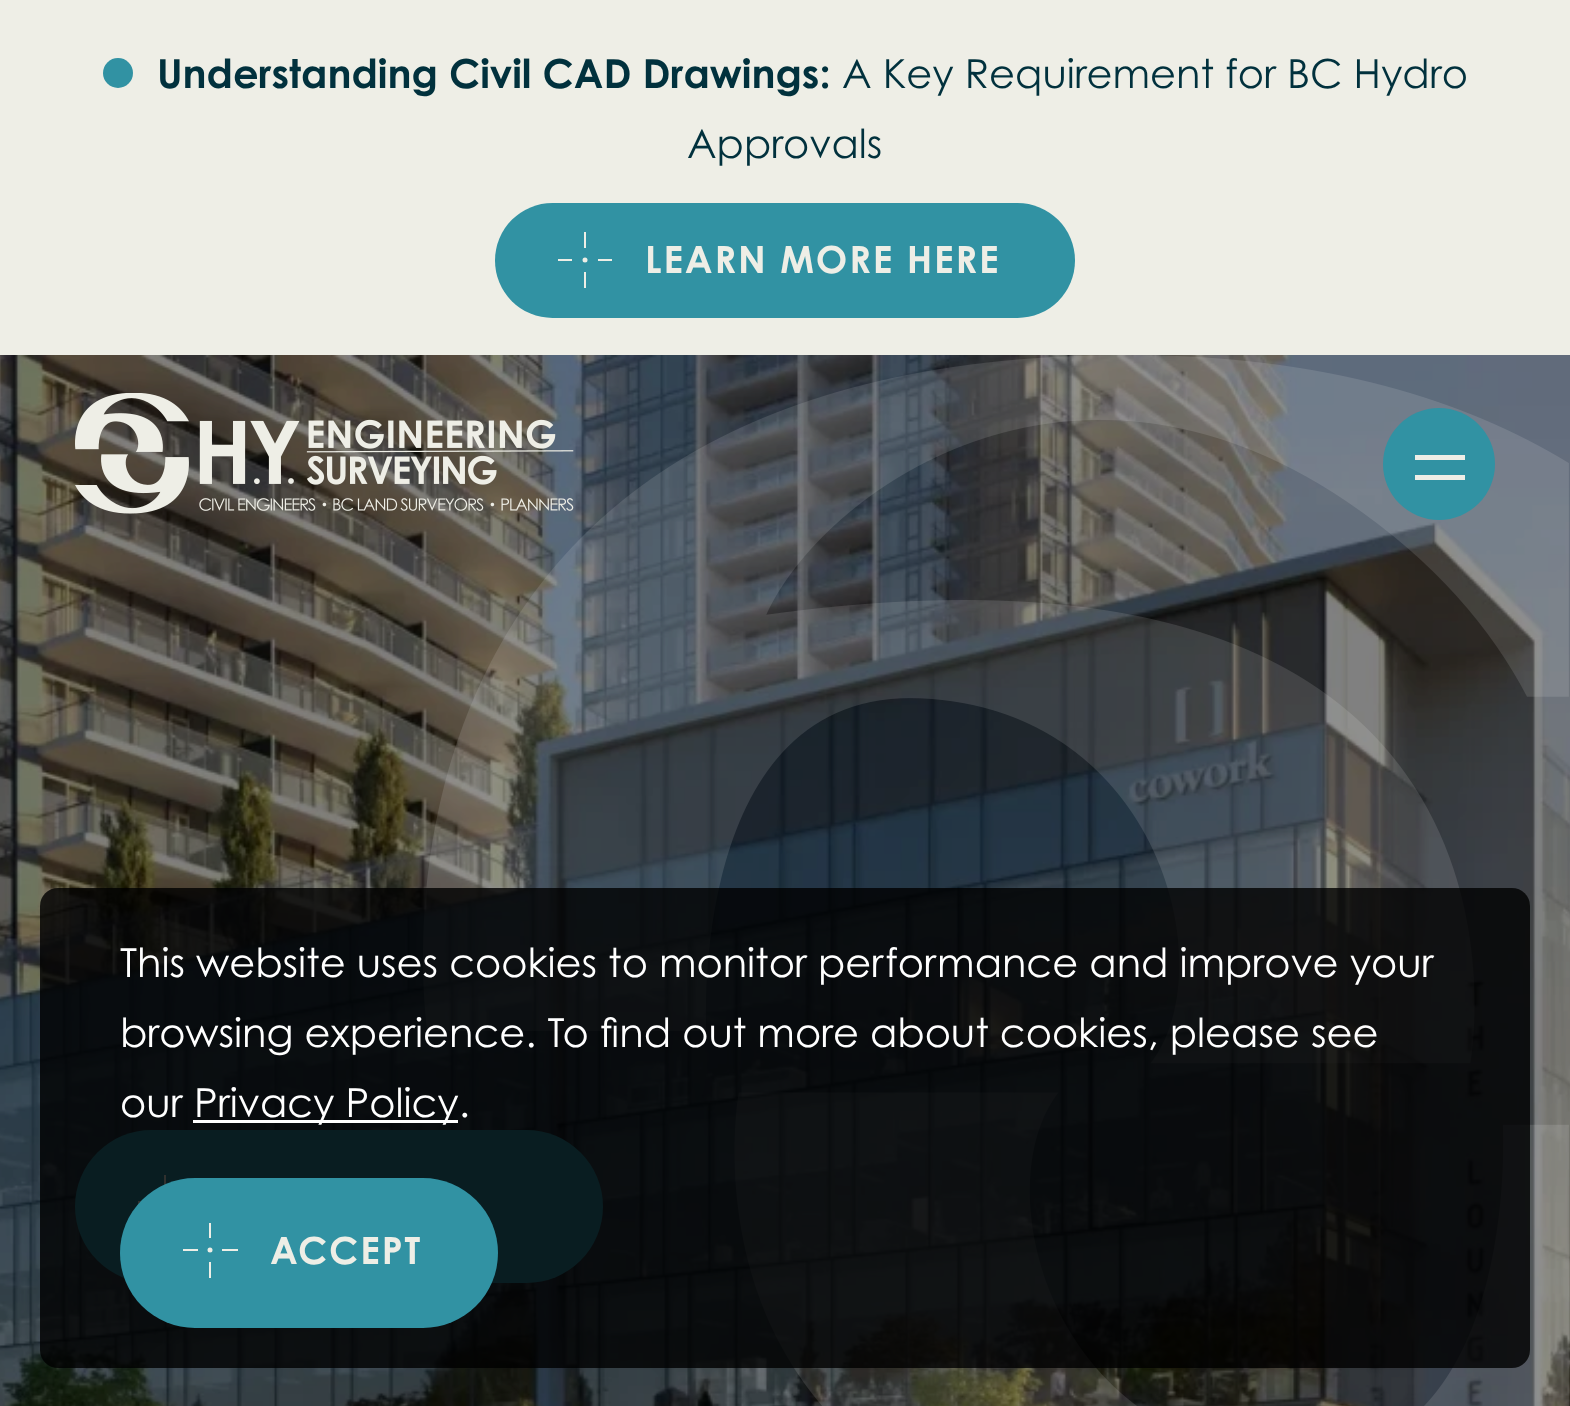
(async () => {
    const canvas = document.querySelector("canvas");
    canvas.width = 1570;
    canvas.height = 1406;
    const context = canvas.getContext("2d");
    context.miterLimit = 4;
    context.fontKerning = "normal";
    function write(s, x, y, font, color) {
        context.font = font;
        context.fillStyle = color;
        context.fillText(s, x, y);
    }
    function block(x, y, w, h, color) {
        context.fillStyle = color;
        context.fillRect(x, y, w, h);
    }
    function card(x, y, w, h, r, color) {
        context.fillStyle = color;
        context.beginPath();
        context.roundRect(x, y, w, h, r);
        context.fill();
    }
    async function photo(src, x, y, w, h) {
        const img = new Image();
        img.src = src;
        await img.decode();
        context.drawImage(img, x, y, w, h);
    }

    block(0, 0, 1570, 1406, "rgb(238, 238, 230)");
    context.fillStyle = "rgb(49, 146, 163)";
    context.beginPath();
    context.arc(118, 73, 15, 0, Math.PI * 2);
    context.fill();
    write("Understanding Civil CAD Drawings:", 157, 88, "bold 40px Century Gothic", "rgb(1, 49, 61)");
    write("A Key Requirement for BC Hydro", 842, 88, "40px Century Gothic", "rgb(1, 49, 61)");
    write("Approvals", 687, 158, "40px Century Gothic", "rgb(1, 49, 61)");
    card(495, 203, 580, 115, 57.5, "rgb(49, 146, 163)");
    context.fillStyle = "rgb(238, 238, 230)";
    context.beginPath();
    context.arc(585, 260, 2.5, 0, Math.PI * 2);
    context.fill();
    context.beginPath();
    context.moveTo(598, 259);
    context.lineTo(612, 259);
    context.lineTo(612, 261);
    context.lineTo(598, 261);
    context.closePath();
    context.moveTo(584, 232);
    context.lineTo(586, 232);
    context.lineTo(586, 248);
    context.lineTo(584, 248);
    context.closePath();
    context.moveTo(584, 272);
    context.lineTo(586, 272);
    context.lineTo(586, 288);
    context.lineTo(584, 288);
    context.closePath();
    context.moveTo(558, 259);
    context.lineTo(572, 259);
    context.lineTo(572, 261);
    context.lineTo(558, 261);
    context.closePath();
    context.fill();
    context.letterSpacing = "1.9px";
    write("LEARN MORE HERE", 645, 273, "bold 37.5px Century Gothic", "rgb(238, 238, 230)");
    await photo("media/2.png", 0, 355, 1570, 1051);
    card(75, 1130, 528, 153, 76.5, "rgb(49, 146, 163)");
    await photo("media/3.png", 423, 355, 1146, 1051);
    await photo("media/1.png", 75, 393, 499, 121);
    context.beginPath();
    context.arc(1439, 464, 56, 0, Math.PI * 2);
    context.fill();
    block(1415, 455, 50, 5, "rgb(238, 238, 230)");
    block(1415, 475, 50, 5, "rgb(238, 238, 230)");
    context.beginPath();
    context.moveTo(178, 1201);
    context.lineTo(192, 1201);
    context.lineTo(192, 1204);
    context.lineTo(178, 1204);
    context.closePath();
    context.moveTo(164, 1175);
    context.lineTo(166, 1175);
    context.lineTo(166, 1190);
    context.lineTo(164, 1190);
    context.closePath();
    context.moveTo(164, 1215);
    context.lineTo(166, 1215);
    context.lineTo(166, 1230);
    context.lineTo(164, 1230);
    context.closePath();
    context.moveTo(138, 1201);
    context.lineTo(152, 1201);
    context.lineTo(152, 1204);
    context.lineTo(138, 1204);
    context.closePath();
    context.fill();
    card(40, 888, 1490, 480, 18, "rgba(0, 0, 0, 0.8)");
    context.letterSpacing = "0px";
    write("This website uses cookies to monitor performance and improve your", 120, 977, "40px Century Gothic", "rgb(255, 255, 255)");
    write("browsing experience. To find out more about cookies, please see", 120, 1047, "40px Century Gothic", "rgb(255, 255, 255)");
    write("our", 120, 1117, "40px Century Gothic", "rgb(255, 255, 255)");
    block(193, 1120, 265, 3, "rgb(255, 255, 255)");
    write("Privacy Policy.", 194, 1117, "40px Century Gothic", "rgb(255, 255, 255)");
    card(120, 1178, 378, 150, 75, "rgb(49, 146, 163)");
    context.fillStyle = "rgb(238, 238, 230)";
    context.beginPath();
    context.arc(210, 1250, 2.5, 0, Math.PI * 2);
    context.fill();
    context.save();
    context.beginPath();
    context.rect(183, 1223, 55, 55);
    context.clip();
    context.beginPath();
    context.moveTo(222, 1249);
    context.lineTo(238, 1249);
    context.lineTo(238, 1251);
    context.lineTo(222, 1251);
    context.closePath();
    context.moveTo(209, 1222);
    context.lineTo(211, 1222);
    context.lineTo(211, 1238);
    context.lineTo(209, 1238);
    context.closePath();
    context.moveTo(209, 1262);
    context.lineTo(211, 1262);
    context.lineTo(211, 1278);
    context.lineTo(209, 1278);
    context.closePath();
    context.moveTo(182, 1249);
    context.lineTo(198, 1249);
    context.lineTo(198, 1251);
    context.lineTo(182, 1251);
    context.closePath();
    context.fill();
    context.restore();
    context.letterSpacing = "1.9px";
    write("ACCEPT", 270, 1264, "bold 37.5px Century Gothic", "rgb(238, 238, 230)");
})();
